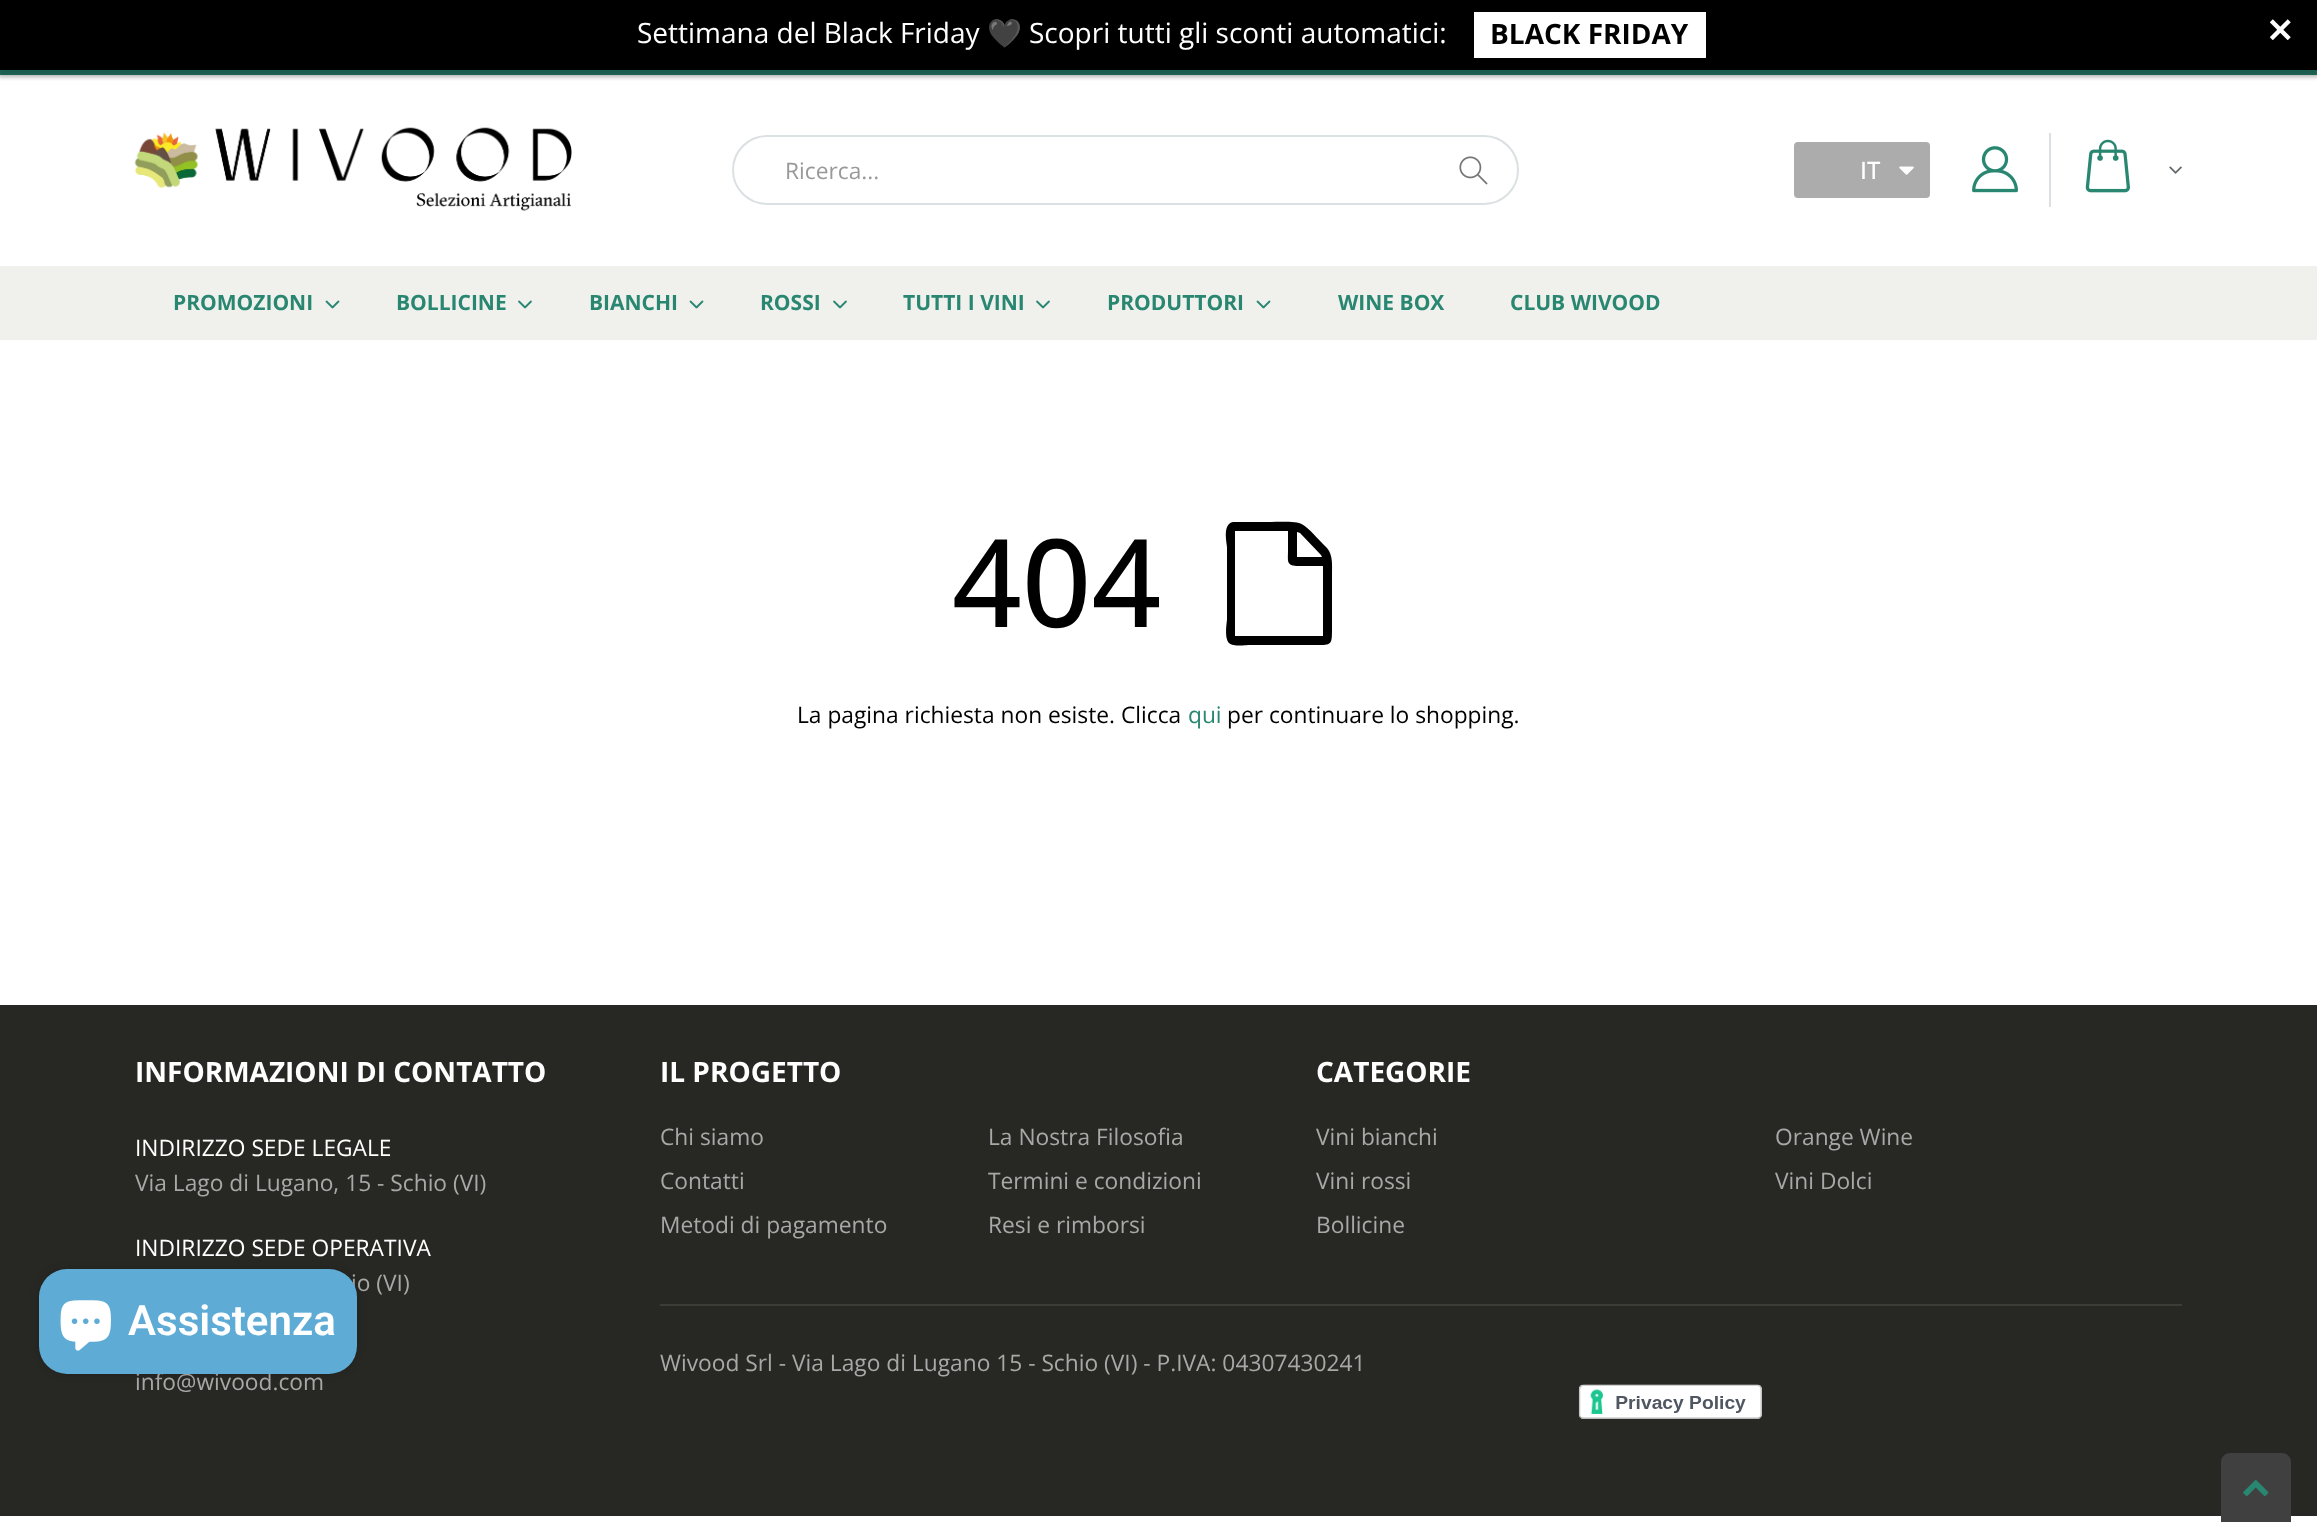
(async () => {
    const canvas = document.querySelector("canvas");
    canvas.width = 2317;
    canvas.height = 1522;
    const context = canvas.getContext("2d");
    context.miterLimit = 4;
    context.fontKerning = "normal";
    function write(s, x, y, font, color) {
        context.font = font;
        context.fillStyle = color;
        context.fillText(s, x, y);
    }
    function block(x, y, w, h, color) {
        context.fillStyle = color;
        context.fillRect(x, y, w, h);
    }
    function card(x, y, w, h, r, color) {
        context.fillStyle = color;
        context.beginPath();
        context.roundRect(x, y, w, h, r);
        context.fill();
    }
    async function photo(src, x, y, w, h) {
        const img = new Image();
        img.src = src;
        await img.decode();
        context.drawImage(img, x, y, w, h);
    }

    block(0, 0, 2317, 1522, "rgb(255, 255, 255)");
    block(0, 70, 2317, 5, "rgb(40, 134, 113)");
    context.fillStyle = "rgba(0, 0, 0, 0.3)";
    context.filter = "blur(2px)";
    context.beginPath();
    context.rect(-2, 4, 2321, 73);
    context.fill();
    context.filter = "none";
    block(0, 0, 2317, 70, "rgb(0, 0, 0)");
    write("Settimana del Black Friday", 637, 43, "28px Open Sans", "rgb(255, 255, 255)");
    write("🖤", 987, 43, "28px Noto Color Emoji", "rgb(255, 255, 255)");
    write("Scopri tutti gli sconti automatici:", 1029, 43, "28px Open Sans", "rgb(255, 255, 255)");
    block(1474, 12, 232, 46, "rgb(255, 255, 255)");
    write("BLACK FRIDAY", 1490, 44, "bold 28px Open Sans", "rgb(0, 0, 0)");
    await photo("media/1.png", 2270, 19, 21, 21);
    await photo("media/2.png", 134, 127, 438, 84);
    context.beginPath();
    context.roundRect(733, 136, 785, 68, 34);
    context.strokeStyle = "rgb(219, 224, 226)";
    context.lineWidth = 2;
    context.stroke();
    write("Ricerca...", 785, 179, "22.75px Open Sans", "rgb(153, 153, 153)");
    await photo("media/3.png", 1459, 156, 29, 29);
    card(1794, 142, 136, 56, 4, "rgb(172, 172, 172)");
    write("IT", 1860, 179, "500 24px Open Sans", "rgb(255, 255, 255)");
    await photo("media/4.png", 1899, 166, 15, 9);
    block(2049, 133, 2, 74, "rgb(221, 224, 226)");
    await photo("media/5.png", 1972, 146, 46, 47);
    await photo("media/6.png", 2085, 139, 45, 54);
    await photo("media/7.png", 2169, 166, 13, 8);
    block(0, 266, 2317, 74, "rgb(240, 240, 237)");
    write("PROMOZIONI", 173, 310, "bold 21px Open Sans", "rgb(40, 134, 113)");
    await photo("media/8.png", 325, 300, 15, 9);
    write("BOLLICINE", 396, 310, "bold 21px Open Sans", "rgb(40, 134, 113)");
    await photo("media/9.png", 518, 300, 14, 9);
    write("BIANCHI", 589, 310, "bold 21px Open Sans", "rgb(40, 134, 113)");
    await photo("media/8.png", 689, 300, 15, 9);
    write("ROSSI", 760, 310, "bold 21px Open Sans", "rgb(40, 134, 113)");
    await photo("media/9.png", 833, 300, 14, 9);
    write("TUTTI I VINI", 903, 310, "bold 21px Open Sans", "rgb(40, 134, 113)");
    await photo("media/9.png", 1036, 300, 14, 9);
    write("PRODUTTORI", 1107, 310, "bold 21px Open Sans", "rgb(40, 134, 113)");
    await photo("media/8.png", 1256, 300, 15, 9);
    write("WINE BOX", 1338, 310, "bold 21px Open Sans", "rgb(40, 134, 113)");
    write("CLUB WIVOOD", 1510, 310, "bold 21px Open Sans", "rgb(40, 134, 113)");
    write("404", 952, 627, "500 122px Open Sans", "rgb(0, 0, 0)");
    context.beginPath();
    context.moveTo(1327, 548);
    context.bezierCurveTo(1333, 555, 1332, 565, 1332, 573);
    context.lineTo(1332, 625);
    context.bezierCurveTo(1332, 647, 1333, 645, 1310, 645);
    context.lineTo(1249, 645);
    context.bezierCurveTo(1247, 645, 1233, 647, 1229, 643);
    context.bezierCurveTo(1224, 638, 1227, 621, 1227, 620);
    context.lineTo(1227, 547);
    context.bezierCurveTo(1227, 543, 1222, 524, 1233, 522);
    context.lineTo(1264, 522);
    context.bezierCurveTo(1308, 522, 1297, 518, 1327, 548);
    context.closePath();
    context.moveTo(1297, 532);
    context.lineTo(1297, 557);
    context.lineTo(1322, 557);
    context.lineTo(1321, 555);
    context.lineTo(1300, 533);
    context.closePath();
    context.moveTo(1323, 636);
    context.lineTo(1323, 566);
    context.lineTo(1299, 566);
    context.bezierCurveTo(1286, 566, 1288, 562, 1288, 550);
    context.lineTo(1288, 531);
    context.lineTo(1235, 531);
    context.lineTo(1235, 636);
    context.closePath();
    context.fill();
    write("La pagina richiesta non esiste. Clicca", 797, 723, "22.75px Open Sans", "rgb(0, 0, 0)");
    write("qui", 1188, 723, "22.75px Open Sans", "rgb(40, 134, 113)");
    write("per continuare lo shopping.", 1227, 723, "22.75px Open Sans", "rgb(0, 0, 0)");
    block(0, 1005, 2317, 511, "rgb(39, 39, 35)");
    write("INFORMAZIONI DI CONTATTO", 135, 1082, "bold 28px Open Sans", "rgb(255, 255, 255)");
    write("INDIRIZZO SEDE LEGALE", 135, 1156, "22.75px Open Sans", "rgb(255, 255, 255)");
    write("Via Lago di Lugano, 15 - Schio (VI)", 135, 1191, "22.75px Open Sans", "rgb(168, 168, 168)");
    write("INDIRIZZO SEDE OPERATIVA", 135, 1256, "22.75px Open Sans", "rgb(255, 255, 255)");
    write("io (VI)", 351, 1291, "22.75px Open Sans", "rgb(168, 168, 168)");
    write("info@wivood.com", 135, 1390, "22.75px Open Sans", "rgb(168, 168, 168)");
    write("IL PROGETTO", 660, 1082, "bold 28px Open Sans", "rgb(255, 255, 255)");
    write("Chi siamo", 660, 1145, "22.75px Open Sans", "rgb(168, 168, 168)");
    write("Contatti", 660, 1189, "22.75px Open Sans", "rgb(168, 168, 168)");
    write("La Nostra Filosofia", 988, 1145, "22.75px Open Sans", "rgb(168, 168, 168)");
    write("Termini e condizioni", 988, 1189, "22.75px Open Sans", "rgb(168, 168, 168)");
    write("Metodi di pagamento", 660, 1233, "22.75px Open Sans", "rgb(168, 168, 168)");
    write("Resi e rimborsi", 988, 1233, "22.75px Open Sans", "rgb(168, 168, 168)");
    write("CATEGORIE", 1316, 1082, "bold 28px Open Sans", "rgb(255, 255, 255)");
    write("Vini bianchi", 1316, 1145, "22.75px Open Sans", "rgb(168, 168, 168)");
    write("Vini rossi", 1316, 1189, "22.75px Open Sans", "rgb(168, 168, 168)");
    write("Bollicine", 1316, 1233, "22.75px Open Sans", "rgb(168, 168, 168)");
    write("Orange Wine", 1775, 1145, "22.75px Open Sans", "rgb(168, 168, 168)");
    write("Vini Dolci", 1775, 1189, "22.75px Open Sans", "rgb(168, 168, 168)");
    block(660, 1304, 1522, 2, "rgb(61, 61, 56)");
    write("Wivood Srl - Via Lago di Lugano 15 - Schio (VI) - P.IVA: 04307430241", 660, 1371, "22.75px Open Sans", "rgb(168, 168, 168)");
    await photo("media/10.png", 1578, 1384, 184, 35);
    context.fillStyle = "rgb(64, 64, 64)";
    context.beginPath();
    context.moveTo(2230, 1453);
    context.lineTo(2282, 1453);
    context.bezierCurveTo(2287, 1453, 2291, 1457, 2291, 1462);
    context.lineTo(2291, 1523);
    context.lineTo(2221, 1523);
    context.lineTo(2221, 1462);
    context.bezierCurveTo(2221, 1457, 2225, 1453, 2230, 1453);
    context.closePath();
    context.fill();
    await photo("media/11.png", 2243, 1480, 26, 16);
    context.fillStyle = "rgba(0, 0, 0, 0.15)";
    context.filter = "blur(4.5px)";
    context.beginPath();
    context.roundRect(39, 1269, 318, 105, 28);
    context.fill();
    context.filter = "none";
    card(39, 1269, 318, 105, 28, "rgb(94, 171, 214)");
    await photo("media/12.png", 60, 1300, 51, 51);
    write("Assistenza", 128, 1335, "600 42px Roboto", "rgb(255, 255, 255)");
})();
